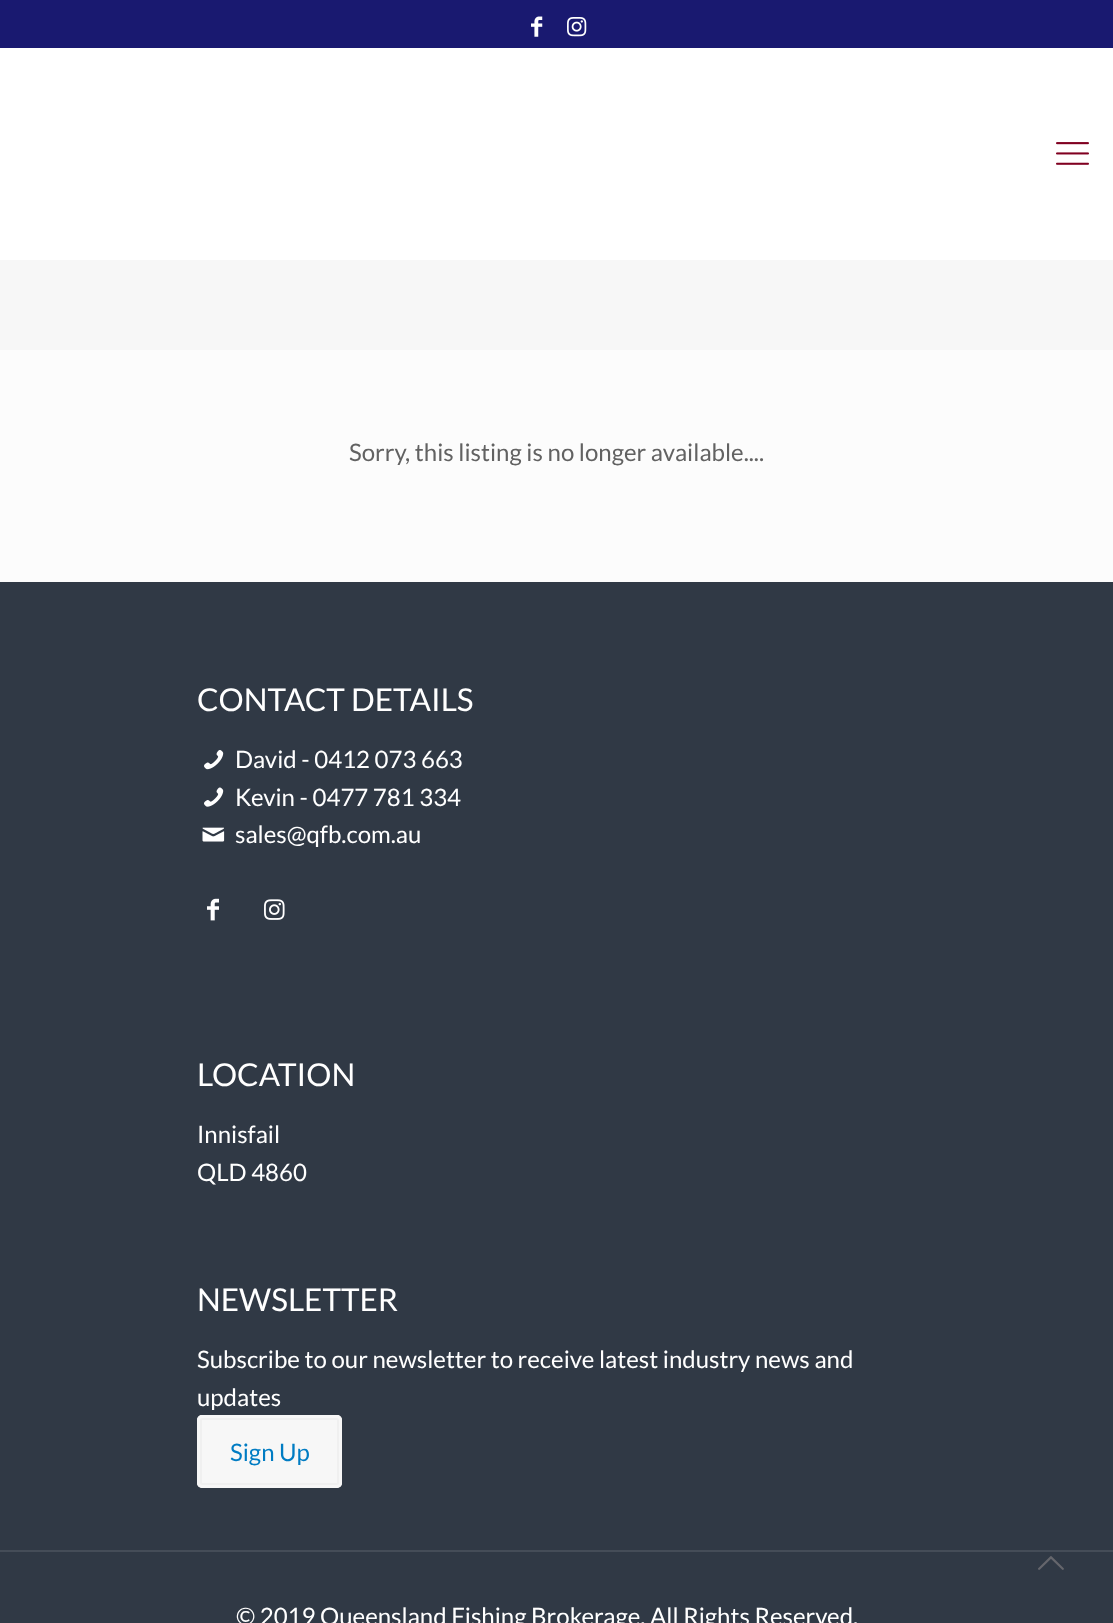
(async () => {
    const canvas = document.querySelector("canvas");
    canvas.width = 1113;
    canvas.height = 1623;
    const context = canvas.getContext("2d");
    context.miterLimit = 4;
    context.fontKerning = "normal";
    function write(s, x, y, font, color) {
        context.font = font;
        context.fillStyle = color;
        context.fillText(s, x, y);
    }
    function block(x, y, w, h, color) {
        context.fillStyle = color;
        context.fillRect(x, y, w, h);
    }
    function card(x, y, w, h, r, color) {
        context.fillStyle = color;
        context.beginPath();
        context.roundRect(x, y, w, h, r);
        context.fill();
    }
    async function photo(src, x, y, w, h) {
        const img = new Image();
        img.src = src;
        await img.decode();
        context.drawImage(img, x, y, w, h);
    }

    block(0, 0, 1113, 1623, "rgb(252, 252, 252)");
    block(0, 0, 1113, 48, "rgb(25, 25, 112)");
    await photo("media/1.png", 531, 16, 12, 21);
    await photo("media/2.png", 567, 17, 20, 20);
    block(0, 48, 1113, 212, "rgb(255, 255, 255)");
    await photo("media/3.png", 1056, 142, 33, 23);
    block(0, 260, 1113, 90, "rgb(247, 247, 247)");
    write("Sorry, this listing is no longer available....", 349, 461, "24px Lato", "rgb(98, 98, 98)");
    block(0, 582, 1113, 1041, "rgb(48, 57, 69)");
    write("CONTACT DETAILS", 197, 711, "31.5px Lato", "rgb(255, 255, 255)");
    await photo("media/4.png", 204, 750, 20, 20);
    write("David - 0412 073 663", 235, 768, "24px Lato", "rgb(255, 255, 255)");
    await photo("media/5.png", 204, 787, 20, 20);
    write("Kevin - 0477 781 334", 235, 806, "24px Lato", "rgb(255, 255, 255)");
    await photo("media/6.png", 202, 827, 23, 15);
    write("sales@qfb.com.au", 235, 843, "24px Lato", "rgb(255, 255, 255)");
    await photo("media/7.png", 207, 898, 12, 23);
    await photo("media/8.png", 264, 899, 21, 21);
    write("LOCATION", 197, 1086, "31.5px Lato", "rgb(255, 255, 255)");
    write("Innisfail", 197, 1143, "24px Lato", "rgb(255, 255, 255)");
    write("QLD 4860", 197, 1181, "24px Lato", "rgb(255, 255, 255)");
    write("NEWSLETTER", 197, 1311, "31.5px Lato", "rgb(255, 255, 255)");
    write("Subscribe to our newsletter to receive latest industry news and", 197, 1368, "24px Lato", "rgb(255, 255, 255)");
    write("updates", 197, 1406, "24px Lato", "rgb(255, 255, 255)");
    card(197, 1415, 145, 73, 5, "rgb(247, 247, 247)");
    context.beginPath();
    context.roundRect(201, 1419, 137, 65, 0.5);
    context.strokeStyle = "rgb(240, 240, 240)";
    context.lineWidth = 2;
    context.stroke();
    context.beginPath();
    context.roundRect(198.5, 1416.5, 142, 70, 3.5);
    context.strokeStyle = "rgb(247, 247, 247)";
    context.lineWidth = 3;
    context.stroke();
    write("Sign Up", 230, 1461, "24px Lato", "rgb(0, 124, 195)");
    block(0, 1550, 1113, 2, "rgb(69, 77, 88)");
    write("© 2019 Queensland Fishing Brokerage. All Rights Reserved.", 236, 1625, "24px Lato", "rgb(255, 255, 255)");
    await photo("media/9.png", 1038, 1556, 26, 14);
})();
